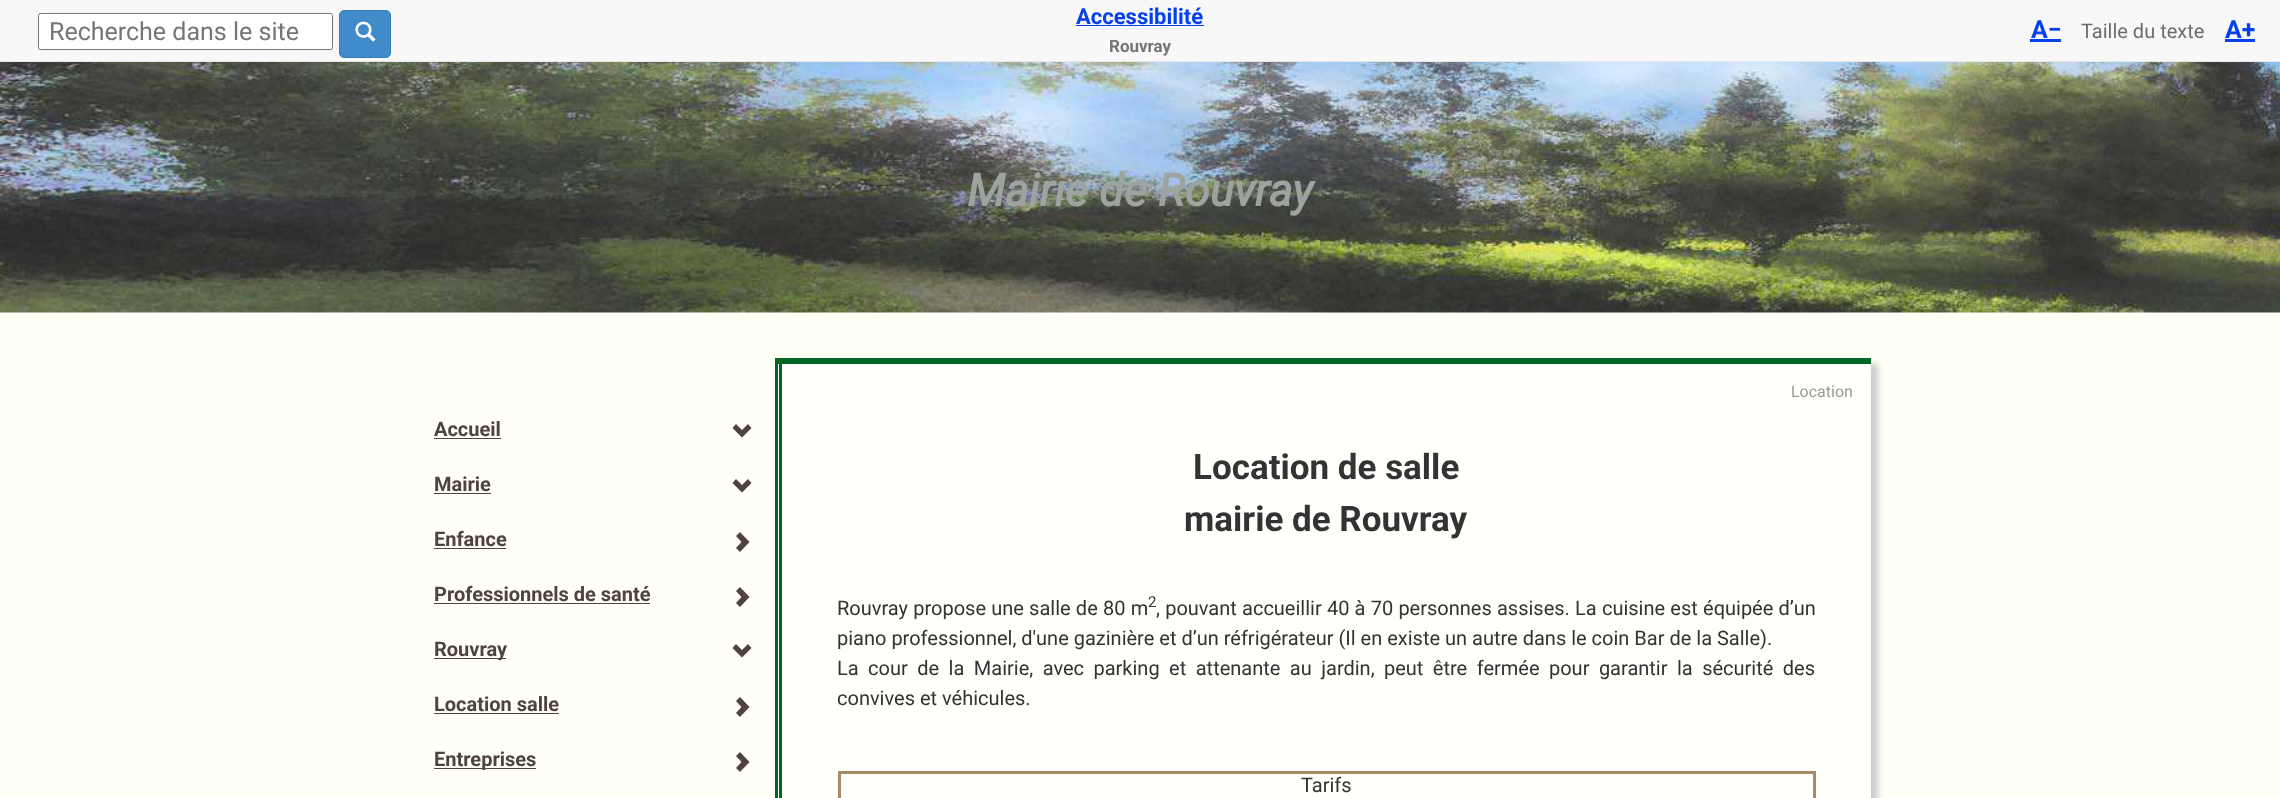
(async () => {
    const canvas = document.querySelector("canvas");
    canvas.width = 2280;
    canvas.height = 798;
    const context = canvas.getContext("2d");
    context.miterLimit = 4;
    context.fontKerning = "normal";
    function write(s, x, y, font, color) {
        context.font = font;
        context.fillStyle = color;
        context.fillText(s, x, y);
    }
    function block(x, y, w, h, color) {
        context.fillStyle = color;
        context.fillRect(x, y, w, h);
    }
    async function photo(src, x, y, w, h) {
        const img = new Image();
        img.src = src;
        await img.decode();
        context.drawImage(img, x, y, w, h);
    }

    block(0, 0, 2280, 798, "rgb(255, 255, 245)");
    await photo("media/1.png", 0, 62, 2280, 251);
    block(0, 0, 2280, 61, "rgb(248, 248, 248)");
    block(0, 61, 2280, 1, "rgb(231, 231, 231)");
    context.fillStyle = "rgb(255, 255, 255)";
    context.beginPath();
    context.roundRect(38.5, 13.5, 294, 36, 2);
    context.fill();
    context.strokeStyle = "rgb(118, 118, 118)";
    context.stroke();
    write("Recherche dans le site", 49, 40, "25px Roboto", "rgb(117, 117, 117)");
    context.fillStyle = "rgb(66, 139, 202)";
    context.beginPath();
    context.roundRect(339.5, 10.5, 51, 47, 4.5);
    context.fill();
    context.strokeStyle = "rgb(53, 126, 189)";
    context.stroke();
    await photo("media/2.png", 355, 21, 21, 21);
    write("Accessibilité", 1076, 24, "bold 22px Roboto", "rgb(5, 64, 239)");
    block(1076, 25, 128, 1, "rgb(5, 64, 239)");
    write("Rouvray", 1109, 52, "bold 17px Roboto", "rgb(117, 117, 117)");
    write("A−", 2031, 38, "bold 25px Roboto", "rgb(5, 64, 239)");
    block(2030, 39, 31, 3, "rgb(5, 64, 239)");
    write("Taille du texte", 2081, 38, "20px Roboto", "rgb(109, 109, 109)");
    write("A+", 2225, 38, "bold 25px Roboto", "rgb(5, 64, 239)");
    block(2225, 39, 30, 3, "rgb(5, 64, 239)");
    write("Mairie de Rouvray", 967, 206, "italic bold 45px Roboto", "rgb(157, 163, 158)");
    write("Accueil", 434, 436, "bold 20px Roboto", "rgb(78, 67, 61)");
    block(434, 438, 67, 1, "rgb(78, 67, 61)");
    context.beginPath();
    context.moveTo(742, 437.5);
    context.lineTo(751.5, 428);
    context.lineTo(748, 424);
    context.lineTo(742, 430);
    context.lineTo(736, 424);
    context.lineTo(732.5, 428);
    context.closePath();
    context.fill();
    write("Mairie", 434, 491, "bold 20px Roboto", "rgb(78, 67, 61)");
    block(434, 493, 57, 1, "rgb(78, 67, 61)");
    context.beginPath();
    context.moveTo(742, 492.5);
    context.lineTo(751.5, 483);
    context.lineTo(748, 479);
    context.lineTo(742, 485);
    context.lineTo(736, 479);
    context.lineTo(732.5, 483);
    context.closePath();
    context.fill();
    write("Enfance", 434, 546, "bold 20px Roboto", "rgb(78, 67, 61)");
    block(434, 548, 72, 1, "rgb(78, 67, 61)");
    context.beginPath();
    context.moveTo(740, 552);
    context.lineTo(736, 548);
    context.lineTo(741.5, 542);
    context.lineTo(736, 536);
    context.lineTo(740, 532);
    context.lineTo(749.5, 542);
    context.closePath();
    context.fill();
    write("Professionnels de santé", 434, 601, "bold 20px Roboto", "rgb(78, 67, 61)");
    block(434, 603, 216, 1, "rgb(78, 67, 61)");
    context.beginPath();
    context.moveTo(740, 607);
    context.lineTo(736, 603);
    context.lineTo(741.5, 597);
    context.lineTo(736, 591);
    context.lineTo(740, 587);
    context.lineTo(749.5, 597);
    context.closePath();
    context.fill();
    block(434, 658, 72, 1, "rgb(78, 67, 61)");
    write("Rouvray", 434, 656, "bold 20px Roboto", "rgb(78, 67, 61)");
    context.beginPath();
    context.moveTo(742, 657.5);
    context.lineTo(751.5, 648);
    context.lineTo(748, 644);
    context.lineTo(742, 650);
    context.lineTo(736, 644);
    context.lineTo(732.5, 648);
    context.closePath();
    context.fill();
    write("Location salle", 434, 711, "bold 20px Roboto", "rgb(78, 67, 61)");
    block(434, 713, 125, 1, "rgb(78, 67, 61)");
    context.beginPath();
    context.moveTo(740, 717);
    context.lineTo(736, 713);
    context.lineTo(741.5, 707);
    context.lineTo(736, 701);
    context.lineTo(740, 697);
    context.lineTo(749.5, 707);
    context.closePath();
    context.fill();
    block(434, 768, 102, 1, "rgb(78, 67, 61)");
    write("Entreprises", 434, 766, "bold 20px Roboto", "rgb(78, 67, 61)");
    context.beginPath();
    context.moveTo(740, 772);
    context.lineTo(736, 768);
    context.lineTo(741.5, 762);
    context.lineTo(736, 756);
    context.lineTo(740, 752);
    context.lineTo(749.5, 762);
    context.closePath();
    context.fill();
    context.fillStyle = "rgb(204, 204, 204)";
    context.filter = "blur(3px)";
    context.beginPath();
    context.rect(781, 364, 1097, 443);
    context.fill();
    context.filter = "none";
    block(778, 364, 1093, 434, "rgb(255, 255, 252)");
    block(775, 358, 1096, 6, "rgb(2, 102, 37)");
    block(775, 358, 3, 440, "rgb(2, 102, 37)");
    block(779, 358, 3, 440, "rgb(2, 102, 37)");
    write("Location", 1791, 397, "16px Roboto", "rgb(153, 153, 153)");
    write("Location de salle", 1193, 479, "bold 35px Roboto", "rgb(51, 51, 51)");
    write("mairie de Rouvray", 1184, 531, "bold 35px Roboto", "rgb(51, 51, 51)");
    context.wordSpacing = "0.25px";
    write("Rouvray propose une salle de 80 m", 837, 615, "20px Roboto", "rgb(51, 51, 51)");
    context.wordSpacing = "0px";
    write("2", 1148, 607, "15px Roboto", "rgb(51, 51, 51)");
    context.wordSpacing = "0.25px";
    write(", pouvant accueillir 40 à 70 personnes assises. La cuisine est équipée d’un", 1156, 615, "20px Roboto", "rgb(51, 51, 51)");
    context.wordSpacing = "0px";
    write("piano professionnel, d'une gazinière et d’un réfrigérateur (Il en existe un autre dans le coin Bar de la Salle).", 837, 645, "20px Roboto", "rgb(51, 51, 51)");
    context.wordSpacing = "4.5px";
    write("La cour de la Mairie, avec parking et attenante au jardin,", 837, 675, "20px Roboto", "rgb(51, 51, 51)");
    write("peut être fermée pour garantir la sécurité des", 1384, 675, "20px Roboto", "rgb(51, 51, 51)");
    context.wordSpacing = "0px";
    write("convives et véhicules.", 837, 705, "20px Roboto", "rgb(51, 51, 51)");
    block(838, 771, 977, 3, "rgb(166, 139, 104)");
    block(1813, 771, 3, 27, "rgb(166, 139, 104)");
    block(838, 771, 3, 27, "rgb(166, 139, 104)");
    write("Tarifs", 1301, 792, "20px Roboto", "rgb(51, 51, 51)");
})();
